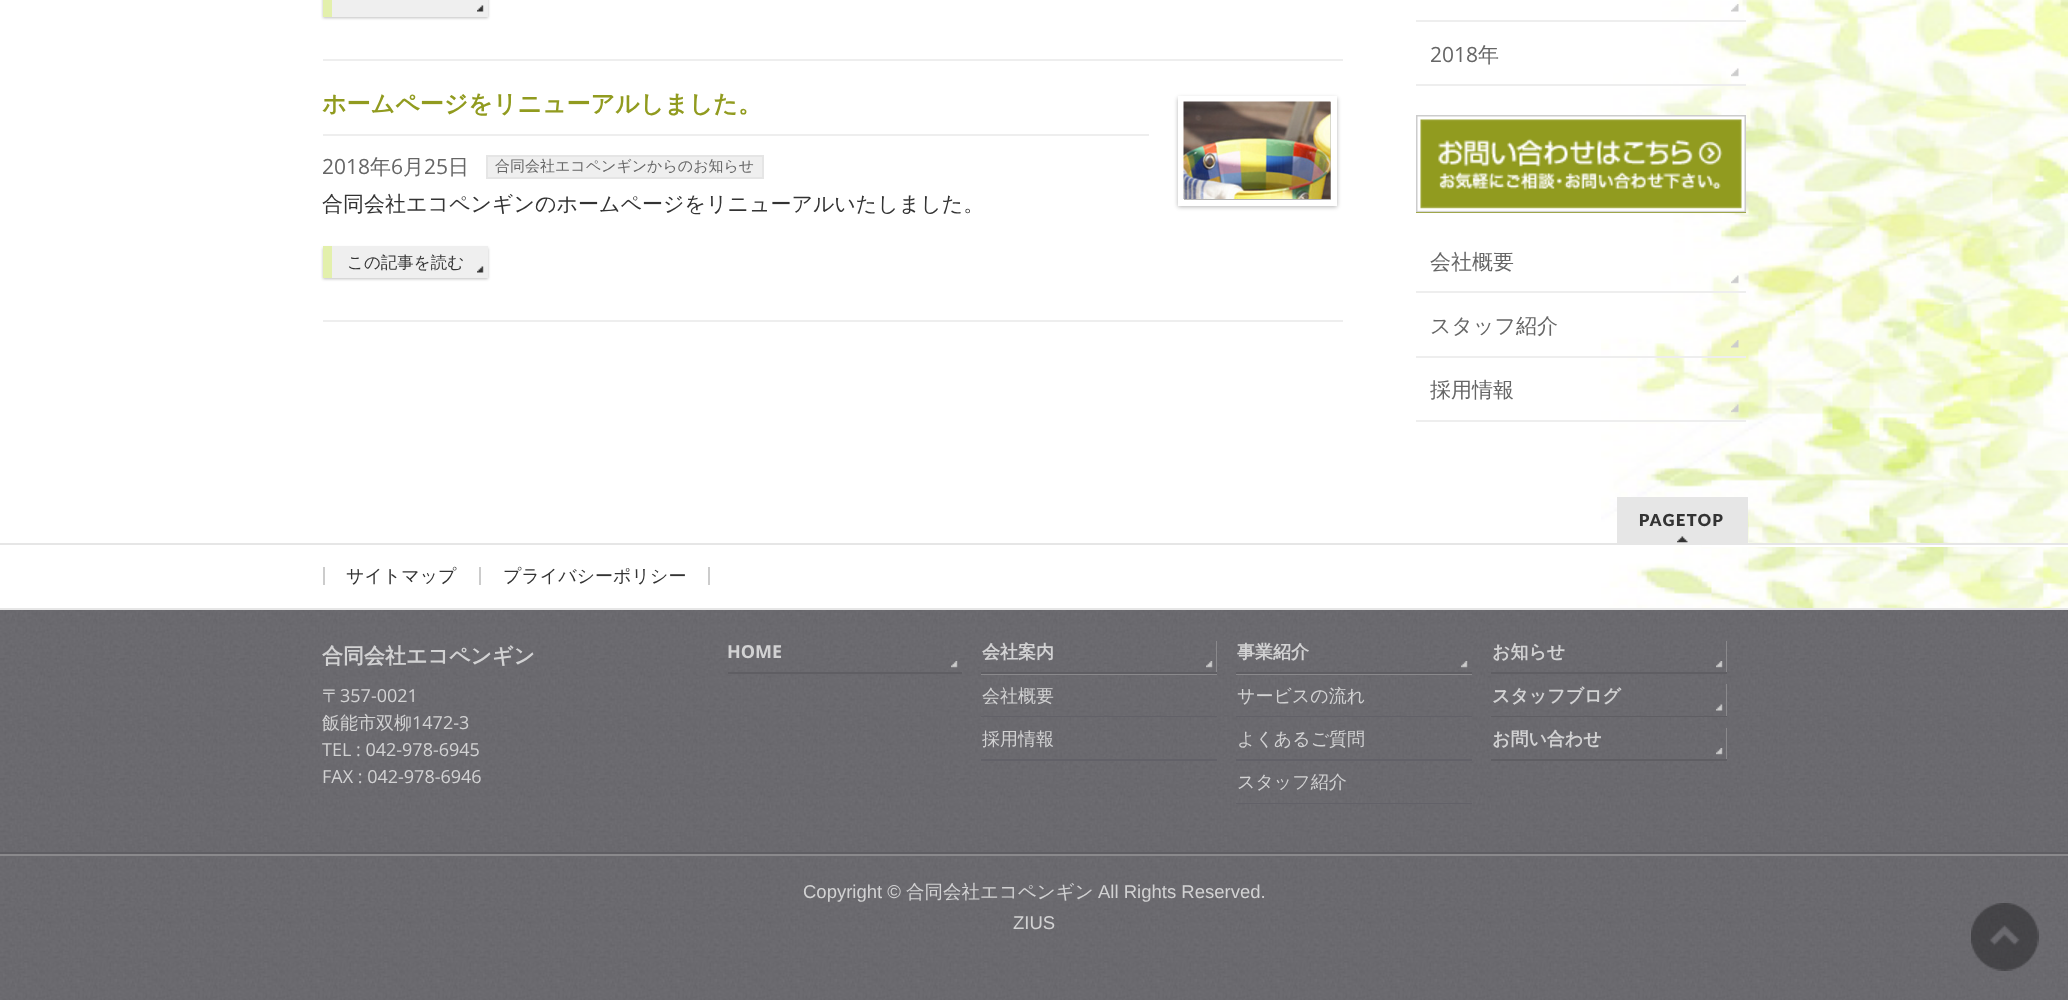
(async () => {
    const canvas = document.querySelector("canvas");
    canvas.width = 2068;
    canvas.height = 1000;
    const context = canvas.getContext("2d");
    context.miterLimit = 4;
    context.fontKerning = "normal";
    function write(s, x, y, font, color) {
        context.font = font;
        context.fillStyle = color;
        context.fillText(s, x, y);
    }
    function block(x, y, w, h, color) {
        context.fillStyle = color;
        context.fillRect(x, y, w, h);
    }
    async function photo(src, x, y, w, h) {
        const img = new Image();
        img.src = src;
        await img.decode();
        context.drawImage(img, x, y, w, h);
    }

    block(0, 0, 2068, 1000, "rgb(255, 255, 255)");
    await photo("media/1.png", 1601, 0, 467, 608);
    block(323, 59, 1020, 2, "rgb(238, 238, 238)");
    context.fillStyle = "rgba(0, 0, 0, 0.25)";
    context.filter = "blur(1.5px)";
    context.beginPath();
    context.rect(323, -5, 165, 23);
    context.fill();
    context.filter = "none";
    block(332, 0, 156, 17, "rgb(239, 239, 239)");
    await photo("media/2.png", 477, 5, 7, 7);
    block(323, 0, 9, 17, "rgb(227, 240, 172)");
    block(323, 320, 1020, 2, "rgb(238, 238, 238)");
    block(323, 134, 826, 2, "rgb(238, 238, 238)");
    write("ホームページをリニューアルしました。", 322, 112, "bold 24px WenQuanYi Zen Hei", "rgb(145, 155, 31)");
    write("2018", 322, 174, "21px Open Sans", "rgb(102, 102, 102)");
    write("年", 370, 174, "500 21px WenQuanYi Zen Hei", "rgb(102, 102, 102)");
    write("6", 391, 174, "21px Open Sans", "rgb(102, 102, 102)");
    write("月", 403, 174, "500 21px WenQuanYi Zen Hei", "rgb(102, 102, 102)");
    write("25", 424, 174, "21px Open Sans", "rgb(102, 102, 102)");
    write("日", 448, 174, "500 21px WenQuanYi Zen Hei", "rgb(102, 102, 102)");
    context.fillStyle = "rgb(239, 239, 239)";
    context.beginPath();
    context.rect(487, 156, 276, 22);
    context.fill();
    context.strokeStyle = "rgb(229, 229, 229)";
    context.lineWidth = 2;
    context.stroke();
    write("合同会社エコペンギンからのお知らせ", 495, 171, "500 15px WenQuanYi Zen Hei", "rgb(102, 102, 102)");
    write("合同会社エコペンギンのホームページをリニューアルいたしました。", 322, 211, "500 21px WenQuanYi Zen Hei", "rgb(51, 51, 51)");
    context.fillStyle = "rgba(0, 0, 0, 0.25)";
    context.filter = "blur(1.5px)";
    context.beginPath();
    context.rect(323, 248, 165, 31);
    context.fill();
    context.filter = "none";
    block(332, 246, 156, 32, "rgb(239, 239, 239)");
    await photo("media/2.png", 477, 266, 7, 7);
    block(323, 246, 9, 32, "rgb(227, 240, 172)");
    write("この記事を読む", 347, 268, "500 16.5px WenQuanYi Zen Hei", "rgb(51, 51, 51)");
    context.fillStyle = "rgba(0, 0, 0, 0.3)";
    context.filter = "blur(2px)";
    context.beginPath();
    context.rect(1178, 98, 159, 109);
    context.fill();
    context.filter = "none";
    context.strokeStyle = "rgb(255, 255, 255)";
    context.lineWidth = 6;
    context.strokeRect(1181, 99, 153, 104);
    await photo("media/3.png", 1183, 101, 148, 98);
    block(1416, 20, 330, 2, "rgb(238, 238, 238)");
    await photo("media/4.png", 1731, 4, 8, 8);
    block(1416, 84, 330, 2, "rgb(238, 238, 238)");
    await photo("media/5.png", 1731, 68, 8, 9);
    write("2018", 1430, 62, "21px Open Sans", "rgb(102, 102, 102)");
    write("年", 1478, 62, "500 21px WenQuanYi Zen Hei", "rgb(102, 102, 102)");
    block(1416, 119, 330, 94, "rgb(145, 155, 31)");
    await photo("media/6.png", 1416, 115, 330, 98);
    block(1416, 291, 330, 2, "rgb(238, 238, 238)");
    await photo("media/7.png", 1731, 275, 8, 9);
    write("会社概要", 1430, 269, "500 21px WenQuanYi Zen Hei", "rgb(102, 102, 102)");
    block(1416, 356, 330, 2, "rgb(238, 238, 238)");
    await photo("media/8.png", 1731, 340, 8, 8);
    write("スタッフ紹介", 1430, 333, "500 21px WenQuanYi Zen Hei", "rgb(102, 102, 102)");
    block(1416, 420, 330, 2, "rgb(238, 238, 238)");
    await photo("media/9.png", 1731, 404, 8, 9);
    write("採用情報", 1430, 397, "500 21px WenQuanYi Zen Hei", "rgb(102, 102, 102)");
    block(1617, 497, 131, 46, "rgb(230, 230, 230)");
    await photo("media/10.png", 1677, 536, 11, 7);
    context.letterSpacing = "1.5px";
    write("PAGETOP", 1639, 526, "900 16.5px Lato", "rgb(51, 51, 51)");
    block(1702, 545, 366, 2, "rgb(255, 255, 255)");
    block(0, 543, 2068, 2, "rgb(230, 230, 230)");
    block(0, 608, 2068, 2, "rgb(230, 230, 230)");
    block(479, 567, 2, 18, "rgb(204, 204, 204)");
    block(323, 567, 2, 18, "rgb(204, 204, 204)");
    context.letterSpacing = "0px";
    write("サイトマップ", 346, 582, "500 18px WenQuanYi Zen Hei", "rgb(51, 51, 51)");
    block(708, 567, 2, 18, "rgb(204, 204, 204)");
    write("プライバシーポリシー", 503, 582, "500 18px WenQuanYi Zen Hei", "rgb(51, 51, 51)");
    await photo("media/11.png", 0, 610, 2068, 242);
    block(0, 852, 2068, 2, "rgb(95, 94, 99)");
    write("合同会社エコペンギン", 322, 663, "bold 21px WenQuanYi Zen Hei", "rgb(210, 210, 211)");
    write("〒", 322, 702, "500 18px WenQuanYi Zen Hei", "rgb(210, 210, 211)");
    write("357-0021", 340, 702, "18px Open Sans", "rgb(210, 210, 211)");
    write("飯能市双柳", 322, 729, "500 18px WenQuanYi Zen Hei", "rgb(210, 210, 211)");
    write("1472-3", 412, 729, "18px Open Sans", "rgb(210, 210, 211)");
    write("TEL : 042-978-6945", 322, 756, "18px Open Sans", "rgb(210, 210, 211)");
    write("FAX : 042-978-6946", 322, 783, "18px Open Sans", "rgb(210, 210, 211)");
    await photo("media/12.png", 951, 661, 7, 7);
    block(728, 672, 234, 2, "rgb(95, 94, 99)");
    write("HOME", 727, 658, "bold 18px Open Sans", "rgb(210, 210, 211)");
    context.fillStyle = "rgb(138, 137, 140)";
    context.beginPath();
    context.moveTo(981, 674);
    context.lineTo(981, 675);
    context.lineTo(1217, 675);
    context.lineTo(1217, 641);
    context.lineTo(1216, 641);
    context.lineTo(1216, 674);
    context.closePath();
    context.fill();
    await photo("media/13.png", 1206, 661, 7, 7);
    block(981, 672, 236, 2, "rgb(95, 94, 99)");
    write("会社案内", 982, 658, "bold 18px WenQuanYi Zen Hei", "rgb(210, 210, 211)");
    block(981, 716, 236, 1, "rgb(98, 97, 104)");
    write("会社概要", 982, 702, "500 18px WenQuanYi Zen Hei", "rgb(210, 210, 211)");
    block(981, 759, 236, 2, "rgb(98, 97, 104)");
    write("採用情報", 982, 745, "500 18px WenQuanYi Zen Hei", "rgb(210, 210, 211)");
    context.fillStyle = "rgb(138, 137, 140)";
    context.beginPath();
    context.moveTo(1236, 674);
    context.lineTo(1236, 675);
    context.lineTo(1472, 675);
    context.lineTo(1472, 641);
    context.lineTo(1472, 674);
    context.closePath();
    context.fill();
    await photo("media/14.png", 1461, 661, 7, 7);
    block(1236, 672, 236, 2, "rgb(95, 94, 99)");
    write("事業紹介", 1237, 658, "bold 18px WenQuanYi Zen Hei", "rgb(210, 210, 211)");
    block(1236, 716, 236, 1, "rgb(98, 97, 104)");
    write("サービスの流れ", 1237, 702, "500 18px WenQuanYi Zen Hei", "rgb(210, 210, 211)");
    block(1236, 759, 236, 2, "rgb(98, 97, 104)");
    write("よくあるご質問", 1237, 745, "500 18px WenQuanYi Zen Hei", "rgb(210, 210, 211)");
    block(1236, 803, 236, 1, "rgb(98, 97, 104)");
    write("スタッフ紹介", 1237, 788, "500 18px WenQuanYi Zen Hei", "rgb(210, 210, 211)");
    context.save();
    context.beginPath();
    context.rect(1491, 639, 236, 35);
    context.clip();
    context.fillStyle = "rgb(138, 137, 140)";
    context.beginPath();
    context.moveTo(1491, 674);
    context.lineTo(1491, 675);
    context.lineTo(1727, 675);
    context.lineTo(1727, 641);
    context.lineTo(1726, 641);
    context.lineTo(1726, 674);
    context.closePath();
    context.fill();
    context.restore();
    await photo("media/15.png", 1716, 661, 7, 7);
    block(1491, 672, 236, 2, "rgb(95, 94, 99)");
    write("お知らせ", 1492, 658, "bold 18px WenQuanYi Zen Hei", "rgb(210, 210, 211)");
    context.save();
    context.beginPath();
    context.rect(1491, 683, 236, 34);
    context.clip();
    context.fillStyle = "rgb(138, 137, 140)";
    context.beginPath();
    context.moveTo(1491, 717);
    context.lineTo(1491, 719);
    context.lineTo(1727, 719);
    context.lineTo(1727, 684);
    context.lineTo(1726, 684);
    context.lineTo(1726, 717);
    context.closePath();
    context.fill();
    context.restore();
    await photo("media/16.png", 1716, 704, 7, 7);
    block(1491, 716, 236, 1, "rgb(95, 94, 99)");
    write("スタッフブログ", 1492, 702, "bold 18px WenQuanYi Zen Hei", "rgb(210, 210, 211)");
    context.save();
    context.beginPath();
    context.rect(1491, 726, 236, 35);
    context.clip();
    context.fillStyle = "rgb(138, 137, 140)";
    context.beginPath();
    context.moveTo(1491, 760);
    context.lineTo(1491, 762);
    context.lineTo(1727, 762);
    context.lineTo(1727, 728);
    context.lineTo(1726, 728);
    context.lineTo(1726, 760);
    context.closePath();
    context.fill();
    context.restore();
    await photo("media/17.png", 1716, 748, 7, 7);
    block(1491, 759, 236, 2, "rgb(95, 94, 99)");
    write("お問い合わせ", 1492, 745, "bold 18px WenQuanYi Zen Hei", "rgb(210, 210, 211)");
    await photo("media/18.png", 0, 856, 2068, 144);
    block(0, 854, 2068, 2, "rgb(138, 137, 140)");
    write("Copyright ©", 803, 898, "18.5px Liberation Sans", "rgb(210, 210, 211)");
    write("合同会社エコペンギン", 906, 898, "500 18.5px WenQuanYi Zen Hei", "rgb(210, 210, 211)");
    write("All Rights Reserved.", 1098, 898, "18.5px Liberation Sans", "rgb(210, 210, 211)");
    write("ZIUS", 1013, 929, "18.5px Liberation Sans", "rgb(210, 210, 211)");
    await photo("media/19.png", 1971, 903, 68, 68);
})();
